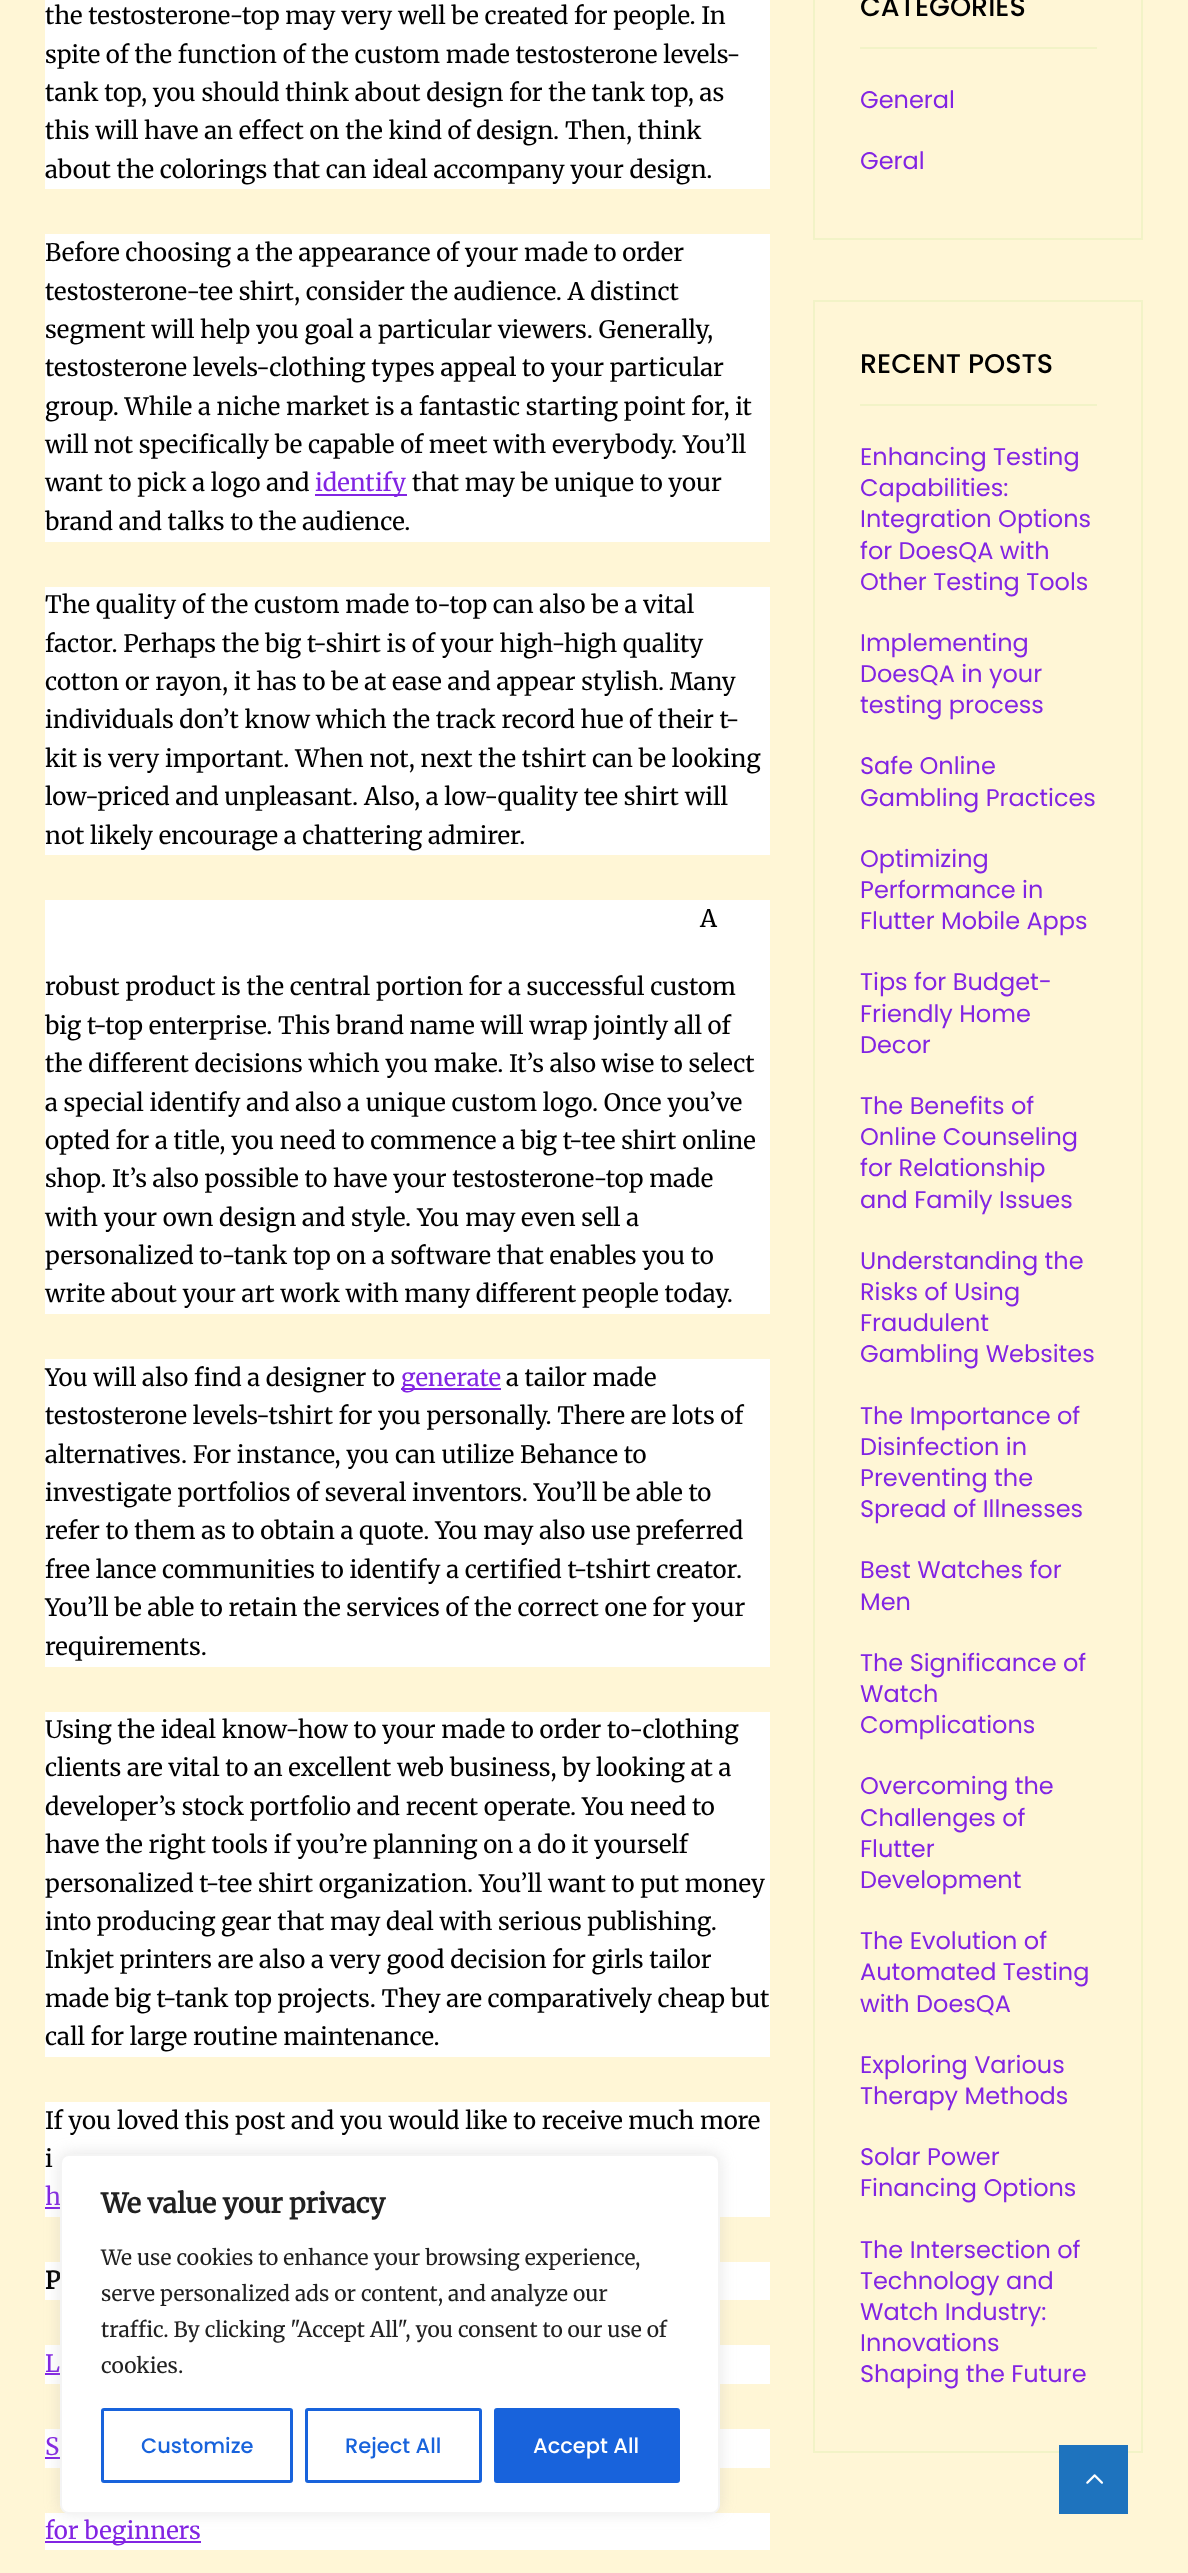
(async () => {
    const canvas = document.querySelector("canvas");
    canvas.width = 1188;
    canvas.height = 2573;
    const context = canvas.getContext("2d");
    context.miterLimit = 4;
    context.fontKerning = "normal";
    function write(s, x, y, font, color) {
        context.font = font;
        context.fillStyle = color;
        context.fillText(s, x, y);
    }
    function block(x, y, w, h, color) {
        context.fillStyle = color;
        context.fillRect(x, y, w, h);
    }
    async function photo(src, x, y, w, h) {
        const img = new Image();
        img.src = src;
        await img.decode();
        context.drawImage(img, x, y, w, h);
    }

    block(0, 0, 1188, 2573, "rgb(255, 246, 214)");
    block(45, 0, 725, 189, "rgb(255, 255, 255)");
    write("the testosterone-top may very well be created for people. In", 45, 24, "300 24px Merriweather", "rgb(0, 0, 0)");
    write("spite of the function of the custom made testosterone levels-", 45, 63, "300 24px Merriweather", "rgb(0, 0, 0)");
    write("tank top, you should think about design for the tank top, as", 45, 101, "300 24px Merriweather", "rgb(0, 0, 0)");
    write("this will have an effect on the kind of design. Then, think", 45, 139, "300 24px Merriweather", "rgb(0, 0, 0)");
    write("about the colorings that can ideal accompany your design.", 45, 178, "300 24px Merriweather", "rgb(0, 0, 0)");
    block(45, 234, 725, 308, "rgb(255, 255, 255)");
    write("Before choosing a the appearance of your made to order", 45, 261, "300 24px Merriweather", "rgb(0, 0, 0)");
    write("testosterone-tee shirt, consider the audience. A distinct", 45, 300, "300 24px Merriweather", "rgb(0, 0, 0)");
    write("segment will help you goal a particular viewers. Generally,", 45, 338, "300 24px Merriweather", "rgb(0, 0, 0)");
    write("testosterone levels-clothing types appeal to your particular", 45, 376, "300 24px Merriweather", "rgb(0, 0, 0)");
    write("group. While a niche market is a fantastic starting point for, it", 45, 415, "300 24px Merriweather", "rgb(0, 0, 0)");
    write("will not specifically be capable of meet with everybody. You’ll", 45, 453, "300 24px Merriweather", "rgb(0, 0, 0)");
    write("want to pick a logo and", 45, 491, "300 24px Merriweather", "rgb(0, 0, 0)");
    block(315, 494, 92, 2, "rgb(130, 36, 227)");
    write("identify", 315, 491, "300 24px Merriweather", "rgb(130, 36, 227)");
    write("that may be unique to your", 412, 491, "300 24px Merriweather", "rgb(0, 0, 0)");
    write("brand and talks to the audience.", 45, 530, "300 24px Merriweather", "rgb(0, 0, 0)");
    block(45, 587, 725, 268, "rgb(255, 255, 255)");
    write("The quality of the custom made to-top can also be a vital", 45, 613, "300 24px Merriweather", "rgb(0, 0, 0)");
    write("factor. Perhaps the big t-shirt is of your high-high quality", 45, 652, "300 24px Merriweather", "rgb(0, 0, 0)");
    write("cotton or rayon, it has to be at ease and appear stylish. Many", 45, 690, "300 24px Merriweather", "rgb(0, 0, 0)");
    write("individuals don’t know which the track record hue of their t-", 45, 728, "300 24px Merriweather", "rgb(0, 0, 0)");
    write("kit is very important. When not, next the tshirt can be looking", 45, 767, "300 24px Merriweather", "rgb(0, 0, 0)");
    write("low-priced and unpleasant. Also, a low-quality tee shirt will", 45, 805, "300 24px Merriweather", "rgb(0, 0, 0)");
    write("not likely encourage a chattering admirer.", 45, 844, "300 24px Merriweather", "rgb(0, 0, 0)");
    block(45, 900, 725, 414, "rgb(255, 255, 255)");
    write("A", 700, 927, "300 24px Merriweather", "rgb(0, 0, 0)");
    write("robust product is the central portion for a successful custom", 45, 995, "300 24px Merriweather", "rgb(0, 0, 0)");
    write("big t-top enterprise. This brand name will wrap jointly all of", 45, 1034, "300 24px Merriweather", "rgb(0, 0, 0)");
    write("the different decisions which you make. It’s also wise to select", 45, 1072, "300 24px Merriweather", "rgb(0, 0, 0)");
    write("a special identify and also a unique custom logo. Once you’ve", 45, 1111, "300 24px Merriweather", "rgb(0, 0, 0)");
    write("opted for a title, you need to commence a big t-tee shirt online", 45, 1149, "300 24px Merriweather", "rgb(0, 0, 0)");
    write("shop. It’s also possible to have your testosterone-top made", 45, 1187, "300 24px Merriweather", "rgb(0, 0, 0)");
    write("with your own design and style. You may even sell a", 45, 1226, "300 24px Merriweather", "rgb(0, 0, 0)");
    write("personalized to-tank top on a software that enables you to", 45, 1264, "300 24px Merriweather", "rgb(0, 0, 0)");
    write("write about your art work with many different people today.", 45, 1302, "300 24px Merriweather", "rgb(0, 0, 0)");
    block(45, 1359, 725, 308, "rgb(255, 255, 255)");
    write("You will also find a designer to", 45, 1386, "300 24px Merriweather", "rgb(0, 0, 0)");
    block(401, 1388, 100, 2, "rgb(130, 36, 227)");
    write("generate", 401, 1386, "300 24px Merriweather", "rgb(130, 36, 227)");
    write("a tailor made", 506, 1386, "300 24px Merriweather", "rgb(0, 0, 0)");
    write("testosterone levels-tshirt for you personally. There are lots of", 45, 1424, "300 24px Merriweather", "rgb(0, 0, 0)");
    write("alternatives. For instance, you can utilize Behance to", 45, 1463, "300 24px Merriweather", "rgb(0, 0, 0)");
    write("investigate portfolios of several inventors. You’ll be able to", 45, 1501, "300 24px Merriweather", "rgb(0, 0, 0)");
    write("refer to them as to obtain a quote. You may also use preferred", 45, 1539, "300 24px Merriweather", "rgb(0, 0, 0)");
    write("free lance communities to identify a certified t-tshirt creator.", 45, 1578, "300 24px Merriweather", "rgb(0, 0, 0)");
    write("You’ll be able to retain the services of the correct one for your", 45, 1616, "300 24px Merriweather", "rgb(0, 0, 0)");
    write("requirements.", 45, 1655, "300 24px Merriweather", "rgb(0, 0, 0)");
    block(45, 1712, 725, 345, "rgb(255, 255, 255)");
    write("Using the ideal know-how to your made to order to-clothing", 45, 1738, "300 24px Merriweather", "rgb(0, 0, 0)");
    write("clients are vital to an excellent web business, by looking at a", 45, 1776, "300 24px Merriweather", "rgb(0, 0, 0)");
    write("developer’s stock portfolio and recent operate. You need to", 45, 1815, "300 24px Merriweather", "rgb(0, 0, 0)");
    write("have the right tools if you’re planning on a do it yourself", 45, 1853, "300 24px Merriweather", "rgb(0, 0, 0)");
    write("personalized t-tee shirt organization. You’ll want to put money", 45, 1892, "300 24px Merriweather", "rgb(0, 0, 0)");
    write("into producing gear that may deal with serious publishing.", 45, 1930, "300 24px Merriweather", "rgb(0, 0, 0)");
    write("Inkjet printers are also a very good decision for girls tailor", 45, 1968, "300 24px Merriweather", "rgb(0, 0, 0)");
    write("made big t-tank top projects. They are comparatively cheap but", 45, 2007, "300 24px Merriweather", "rgb(0, 0, 0)");
    write("call for large routine maintenance.", 45, 2045, "300 24px Merriweather", "rgb(0, 0, 0)");
    block(45, 2102, 725, 115, "rgb(255, 255, 255)");
    write("If you loved this post and you would like to receive much more", 45, 2129, "300 24px Merriweather", "rgb(0, 0, 0)");
    write("i", 45, 2167, "300 24px Merriweather", "rgb(0, 0, 0)");
    write("h", 45, 2205, "300 24px Merriweather", "rgb(130, 36, 227)");
    block(45, 2207, 15, 2, "rgb(130, 36, 227)");
    block(45, 2262, 725, 38, "rgb(255, 255, 255)");
    write("P", 45, 2289, "bold 24px Merriweather", "rgb(0, 0, 0)");
    block(45, 2345, 725, 39, "rgb(255, 255, 255)");
    write("L", 45, 2372, "300 24px Merriweather", "rgb(130, 36, 227)");
    block(45, 2373, 15, 2, "rgb(130, 36, 227)");
    block(45, 2429, 725, 39, "rgb(255, 255, 255)");
    write("S", 45, 2455, "300 24px Merriweather", "rgb(130, 36, 227)");
    block(45, 2457, 15, 2, "rgb(130, 36, 227)");
    block(45, 2513, 725, 37, "rgb(255, 255, 255)");
    block(45, 2541, 156, 2, "rgb(130, 36, 227)");
    write("for beginners", 45, 2539, "300 24px Merriweather", "rgb(130, 36, 227)");
    context.strokeStyle = "rgb(242, 243, 199)";
    context.lineWidth = 2;
    context.strokeRect(814, -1, 328, 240);
    block(860, 47, 237, 2, "rgb(242, 243, 199)");
    write("CATEGORIES", 860, 16, "500 27px Poppins", "rgb(0, 0, 0)");
    write("General", 860, 108, "24px Poppins", "rgb(130, 36, 227)");
    write("Geral", 860, 169, "24px Poppins", "rgb(130, 36, 227)");
    context.strokeRect(814, 301, 328, 2151);
    block(860, 404, 237, 2, "rgb(242, 243, 199)");
    write("RECENT POSTS", 860, 373, "500 27px Poppins", "rgb(0, 0, 0)");
    write("Enhancing Testing", 860, 465, "24px Poppins", "rgb(130, 36, 227)");
    write("Capabilities:", 860, 496, "24px Poppins", "rgb(130, 36, 227)");
    write("Integration Options", 860, 527, "24px Poppins", "rgb(130, 36, 227)");
    write("for DoesQA with", 860, 559, "24px Poppins", "rgb(130, 36, 227)");
    write("Other Testing Tools", 860, 590, "24px Poppins", "rgb(130, 36, 227)");
    write("Implementing", 860, 651, "24px Poppins", "rgb(130, 36, 227)");
    write("DoesQA in your", 860, 682, "24px Poppins", "rgb(130, 36, 227)");
    write("testing process", 860, 713, "24px Poppins", "rgb(130, 36, 227)");
    write("Safe Online", 860, 774, "24px Poppins", "rgb(130, 36, 227)");
    write("Gambling Practices", 860, 806, "24px Poppins", "rgb(130, 36, 227)");
    write("Optimizing", 860, 867, "24px Poppins", "rgb(130, 36, 227)");
    write("Performance in", 860, 898, "24px Poppins", "rgb(130, 36, 227)");
    write("Flutter Mobile Apps", 860, 929, "24px Poppins", "rgb(130, 36, 227)");
    write("Tips for Budget-", 860, 990, "24px Poppins", "rgb(130, 36, 227)");
    write("Friendly Home", 860, 1022, "24px Poppins", "rgb(130, 36, 227)");
    write("Decor", 860, 1053, "24px Poppins", "rgb(130, 36, 227)");
    write("The Benefits of", 860, 1114, "24px Poppins", "rgb(130, 36, 227)");
    write("Online Counseling", 860, 1145, "24px Poppins", "rgb(130, 36, 227)");
    write("for Relationship", 860, 1176, "24px Poppins", "rgb(130, 36, 227)");
    write("and Family Issues", 860, 1208, "24px Poppins", "rgb(130, 36, 227)");
    write("Understanding the", 860, 1269, "24px Poppins", "rgb(130, 36, 227)");
    write("Risks of Using", 860, 1300, "24px Poppins", "rgb(130, 36, 227)");
    write("Fraudulent", 860, 1331, "24px Poppins", "rgb(130, 36, 227)");
    write("Gambling Websites", 860, 1362, "24px Poppins", "rgb(130, 36, 227)");
    write("The Importance of", 860, 1424, "24px Poppins", "rgb(130, 36, 227)");
    write("Disinfection in", 860, 1455, "24px Poppins", "rgb(130, 36, 227)");
    write("Preventing the", 860, 1486, "24px Poppins", "rgb(130, 36, 227)");
    write("Spread of Illnesses", 860, 1517, "24px Poppins", "rgb(130, 36, 227)");
    write("Best Watches for", 860, 1578, "24px Poppins", "rgb(130, 36, 227)");
    write("Men", 860, 1610, "24px Poppins", "rgb(130, 36, 227)");
    write("The Significance of", 860, 1671, "24px Poppins", "rgb(130, 36, 227)");
    write("Watch", 860, 1702, "24px Poppins", "rgb(130, 36, 227)");
    write("Complications", 860, 1733, "24px Poppins", "rgb(130, 36, 227)");
    write("Overcoming the", 860, 1794, "24px Poppins", "rgb(130, 36, 227)");
    write("Challenges of", 860, 1826, "24px Poppins", "rgb(130, 36, 227)");
    write("Flutter", 860, 1857, "24px Poppins", "rgb(130, 36, 227)");
    write("Development", 860, 1888, "24px Poppins", "rgb(130, 36, 227)");
    write("The Evolution of", 860, 1949, "24px Poppins", "rgb(130, 36, 227)");
    write("Automated Testing", 860, 1980, "24px Poppins", "rgb(130, 36, 227)");
    write("with DoesQA", 860, 2012, "24px Poppins", "rgb(130, 36, 227)");
    write("Exploring Various", 860, 2073, "24px Poppins", "rgb(130, 36, 227)");
    write("Therapy Methods", 860, 2104, "24px Poppins", "rgb(130, 36, 227)");
    write("Solar Power", 860, 2165, "24px Poppins", "rgb(130, 36, 227)");
    write("Financing Options", 860, 2196, "24px Poppins", "rgb(130, 36, 227)");
    write("The Intersection of", 860, 2258, "24px Poppins", "rgb(130, 36, 227)");
    write("Technology and", 860, 2289, "24px Poppins", "rgb(130, 36, 227)");
    write("Watch Industry:", 860, 2320, "24px Poppins", "rgb(130, 36, 227)");
    write("Innovations", 860, 2351, "24px Poppins", "rgb(130, 36, 227)");
    write("Shaping the Future", 860, 2382, "24px Poppins", "rgb(130, 36, 227)");
    context.fillStyle = "rgba(172, 171, 171, 0.3)";
    context.filter = "blur(7.5px)";
    context.beginPath();
    context.roundRect(60, 2153, 660, 360, 9);
    context.fill();
    context.filter = "none";
    context.fillStyle = "rgb(255, 255, 255)";
    context.beginPath();
    context.roundRect(61, 2155, 658, 358, 8);
    context.fill();
    context.strokeStyle = "rgb(244, 244, 244)";
    context.stroke();
    write("We value your privacy", 101, 2213, "bold 27px Merriweather", "rgb(33, 33, 33)");
    write("We use cookies to enhance your browsing experience,", 101, 2265, "300 21px Merriweather", "rgb(33, 33, 33)");
    write("serve personalized ads or content, and analyze our", 101, 2301, "300 21px Merriweather", "rgb(33, 33, 33)");
    write("traffic. By clicking \"Accept All\", you consent to our use of", 101, 2337, "300 21px Merriweather", "rgb(33, 33, 33)");
    write("cookies.", 101, 2373, "300 21px Merriweather", "rgb(33, 33, 33)");
    context.beginPath();
    context.roundRect(102.5, 2409.5, 189, 72, 1.5);
    context.strokeStyle = "rgb(24, 99, 220)";
    context.lineWidth = 3;
    context.stroke();
    write("Customize", 141, 2453, "500 21px Poppins", "rgb(24, 99, 220)");
    context.beginPath();
    context.roundRect(306.5, 2409.5, 174, 72, 1.5);
    context.stroke();
    write("Reject All", 345, 2453, "500 21px Poppins", "rgb(24, 99, 220)");
    context.beginPath();
    context.roundRect(495.5, 2409.5, 183, 72, 1.5);
    context.fill();
    context.stroke();
    write("Accept All", 533, 2453, "500 21px Poppins", "rgb(255, 255, 255)");
    block(1059, 2445, 69, 69, "rgb(30, 115, 190)");
    await photo("media/1.png", 1086, 2474, 17, 10);
})();
